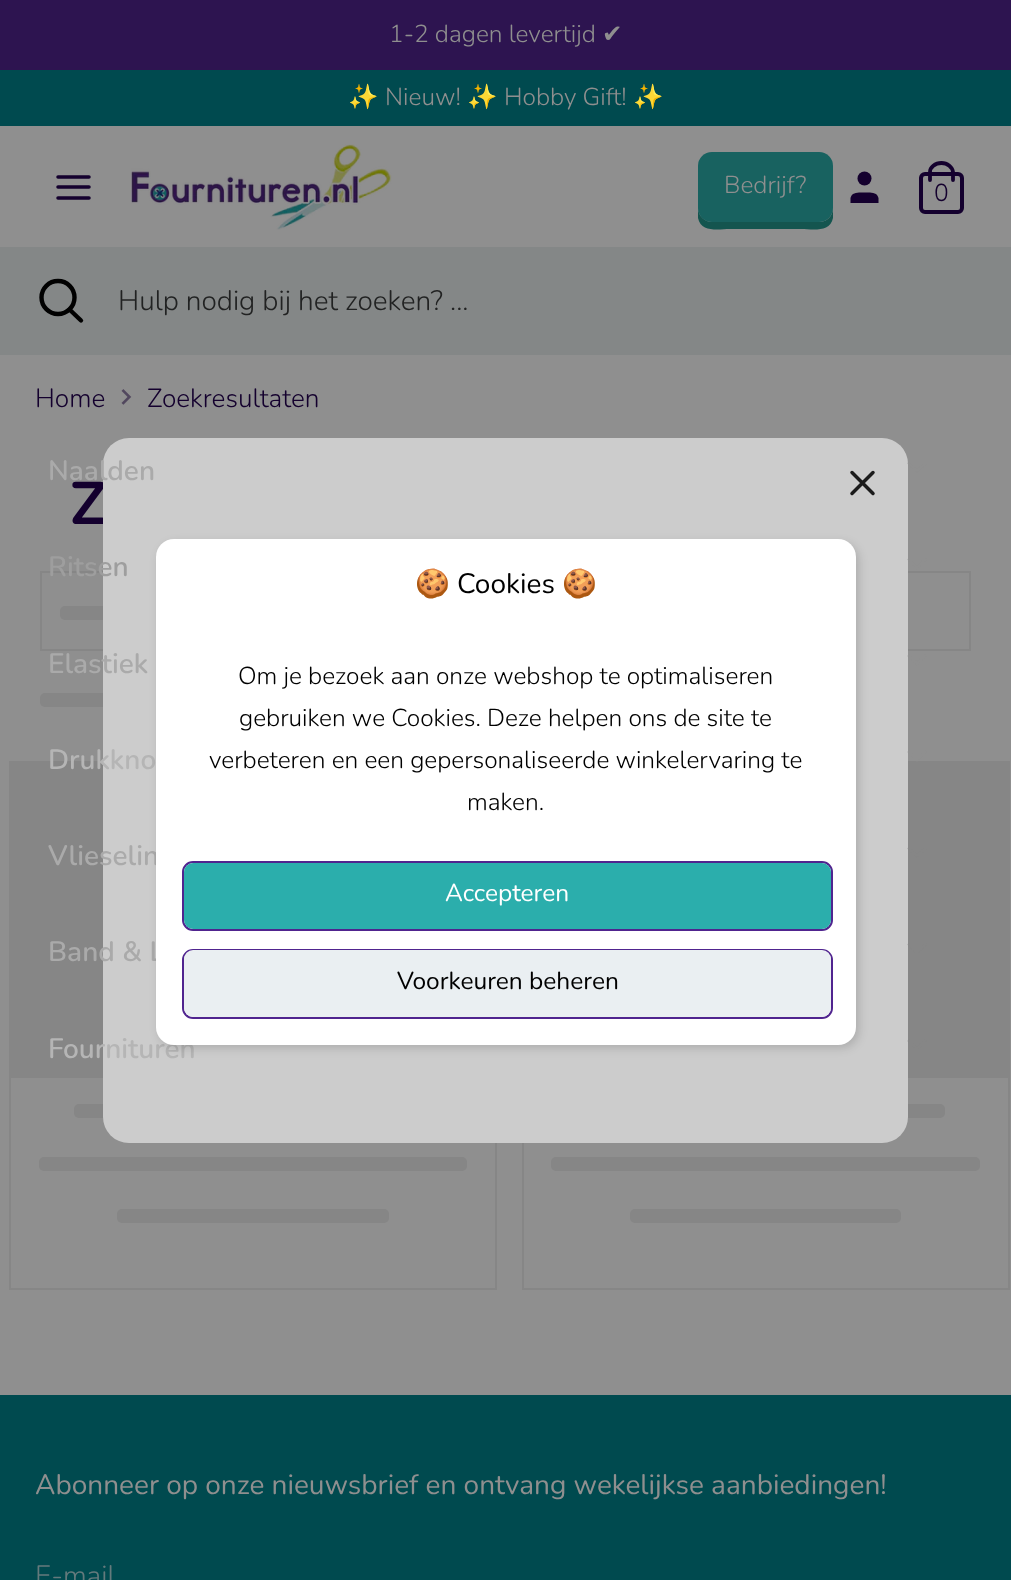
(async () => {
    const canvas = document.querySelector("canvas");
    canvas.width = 1011;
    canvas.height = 1580;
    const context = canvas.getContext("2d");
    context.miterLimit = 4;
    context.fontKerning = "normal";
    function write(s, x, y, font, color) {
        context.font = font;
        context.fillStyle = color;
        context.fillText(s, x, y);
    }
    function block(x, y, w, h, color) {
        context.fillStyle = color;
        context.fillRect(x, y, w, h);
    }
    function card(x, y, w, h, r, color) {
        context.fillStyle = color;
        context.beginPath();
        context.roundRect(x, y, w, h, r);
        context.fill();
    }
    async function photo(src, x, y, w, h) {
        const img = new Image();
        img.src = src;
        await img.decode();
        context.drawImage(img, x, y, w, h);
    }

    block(0, 0, 1011, 1580, "rgb(143, 143, 143)");
    block(0, 0, 1011, 70, "rgb(45, 20, 80)");
    write("1-2 dagen levertijd", 389, 42, "300 24.5px Nunito", "rgb(143, 143, 143)");
    write("✔", 602, 42, "24.5px DejaVu Sans", "rgb(143, 143, 143)");
    block(0, 70, 1011, 56, "rgb(0, 74, 79)");
    write("✨", 348, 105, "24.5px Noto Color Emoji", "rgb(143, 143, 143)");
    write("Nieuw!", 385, 105, "300 24.5px Nunito", "rgb(143, 143, 143)");
    write("✨", 467, 105, "24.5px Noto Color Emoji", "rgb(143, 143, 143)");
    write("Hobby Gift!", 504, 105, "300 24.5px Nunito", "rgb(143, 143, 143)");
    write("✨", 633, 105, "24.5px Noto Color Emoji", "rgb(143, 143, 143)");
    context.beginPath();
    context.moveTo(58, 187);
    context.lineTo(89, 187);
    context.moveTo(58, 177);
    context.lineTo(89, 177);
    context.moveTo(58, 198);
    context.lineTo(89, 198);
    context.strokeStyle = "rgb(20, 0, 46)";
    context.lineWidth = 3.5;
    context.lineCap = "round";
    context.stroke();
    await photo("media/1.png", 131, 144, 261, 86);
    context.fillStyle = "rgb(20, 85, 79)";
    context.beginPath();
    context.moveTo(698, 170);
    context.lineTo(698, 218);
    context.bezierCurveTo(701, 233, 719, 229, 730, 229);
    context.lineTo(801, 229);
    context.bezierCurveTo(812, 229, 830, 233, 833, 218);
    context.lineTo(833, 208);
    context.bezierCurveTo(833, 216, 827, 222, 819, 222);
    context.lineTo(712, 222);
    context.bezierCurveTo(705, 222, 698, 216, 698, 208);
    context.closePath();
    context.fill();
    card(698, 152, 135, 70, 14, "rgb(24, 98, 96)");
    write("Bedrijf?", 724, 193, "300 24.5px Nunito", "rgb(143, 143, 143)");
    context.fillStyle = "rgb(20, 0, 46)";
    context.beginPath();
    context.moveTo(878.5, 203);
    context.lineTo(878.5, 198);
    context.bezierCurveTo(877, 191.5, 869.5, 192.5, 864.5, 192.5);
    context.bezierCurveTo(859.5, 192.5, 852, 191.5, 850.5, 198);
    context.lineTo(850.5, 203);
    context.fill();
    context.beginPath();
    context.arc(864.5, 178.5, 7, 0, Math.PI * 2);
    context.fill();
    context.beginPath();
    context.roundRect(921, 174, 41, 38, 4);
    context.lineWidth = 4;
    context.stroke();
    context.beginPath();
    context.moveTo(930, 180);
    context.lineTo(930, 172);
    context.bezierCurveTo(930, 167.5, 935, 163, 941.5, 163);
    context.bezierCurveTo(947.5, 163, 952.5, 167.5, 953, 172);
    context.lineTo(953, 180);
    context.lineWidth = 3.8;
    context.stroke();
    write("0", 934, 201, "300 24.5px Nunito", "rgb(20, 0, 46)");
    block(0, 247, 1011, 108, "rgb(132, 135, 135)");
    context.beginPath();
    context.arc(58, 297.5, 16.5, 0, Math.PI * 2);
    context.strokeStyle = "rgb(0, 0, 0)";
    context.lineWidth = 4.4;
    context.stroke();
    context.beginPath();
    context.moveTo(81, 320.5);
    context.lineTo(69.5, 309.5);
    context.stroke();
    write("Hulp nodig bij het zoeken? ...", 118, 310, "300 28px Nunito", "rgb(33, 34, 34)");
    write("Z", 70, 524, "bold 60px Nunito", "rgb(20, 0, 46)");
    context.strokeStyle = "rgb(134, 134, 134)";
    context.lineWidth = 2;
    context.strokeRect(41, 572, 929, 78);
    card(60, 606, 280, 14, 5, "rgb(134, 134, 134)");
    card(40, 693, 438, 14, 5, "rgb(134, 134, 134)");
    context.strokeRect(10, 762, 486, 527);
    card(74, 1104, 358, 14, 5, "rgb(134, 134, 134)");
    context.strokeRect(523, 762, 486, 527);
    card(586, 1104, 359, 14, 5, "rgb(134, 134, 134)");
    card(103, 438, 805, 705, 26, "rgb(204, 204, 204)");
    write("Naalden", 48, 480, "600 28px Nunito", "rgb(170, 170, 170)");
    context.beginPath();
    context.moveTo(909, 463.5);
    context.lineTo(917, 471);
    context.lineTo(925, 463.5);
    context.strokeStyle = "rgb(143, 143, 143)";
    context.lineWidth = 2.6;
    context.stroke();
    write("Ritsen", 48, 576, "600 28px Nunito", "rgb(158, 158, 158)");
    context.beginPath();
    context.moveTo(909, 559.5);
    context.lineTo(917, 567.5);
    context.lineTo(925, 559.5);
    context.stroke();
    write("Elastiek", 48, 673, "600 28px Nunito", "rgb(170, 170, 170)");
    context.beginPath();
    context.moveTo(909, 656);
    context.lineTo(917, 663.5);
    context.lineTo(925, 656);
    context.stroke();
    block(11, 763, 92, 315, "rgb(134, 134, 134)");
    write("Drukkno", 48, 769, "600 28px Nunito", "rgb(181, 181, 181)");
    context.beginPath();
    context.moveTo(909, 752);
    context.lineTo(917, 760);
    context.lineTo(925, 752);
    context.stroke();
    write("Vlieselin", 48, 865, "600 28px Nunito", "rgb(170, 170, 170)");
    block(908, 763, 100, 315, "rgb(134, 134, 134)");
    context.beginPath();
    context.moveTo(909, 848.5);
    context.lineTo(917, 856);
    context.lineTo(925, 848.5);
    context.strokeStyle = "rgb(134, 134, 134)";
    context.stroke();
    write("Band & L", 48, 961, "600 28px Nunito", "rgb(170, 170, 170)");
    context.beginPath();
    context.moveTo(909, 944.5);
    context.lineTo(917, 952.5);
    context.lineTo(925, 944.5);
    context.stroke();
    write("Fournituren", 48, 1058, "600 28px Nunito", "rgb(181, 181, 181)");
    context.beginPath();
    context.moveTo(909, 1041);
    context.lineTo(917, 1048.5);
    context.lineTo(925, 1041);
    context.stroke();
    write("Home", 35, 407, "300 26.25px Nunito", "rgb(20, 0, 46)");
    await photo("media/2.png", 121, 389, 11, 16);
    write("Zoekresultaten", 147, 407, "300 26.25px Nunito", "rgb(20, 0, 46)");
    card(39, 1157, 428, 14, 5, "rgb(134, 134, 134)");
    card(117, 1209, 272, 14, 5, "rgb(134, 134, 134)");
    card(551, 1157, 429, 14, 5, "rgb(134, 134, 134)");
    card(630, 1209, 271, 14, 5, "rgb(134, 134, 134)");
    context.beginPath();
    context.moveTo(873, 472.5);
    context.lineTo(852, 493.5);
    context.moveTo(852, 472.5);
    context.lineTo(873, 493.5);
    context.strokeStyle = "rgb(27, 27, 27)";
    context.lineWidth = 3.5;
    context.stroke();
    context.fillStyle = "rgba(0, 0, 0, 0.15)";
    context.filter = "blur(5px)";
    context.beginPath();
    context.roundRect(159, 543, 700, 505, 18);
    context.fill();
    context.filter = "none";
    card(156, 539, 700, 506, 18, "rgb(255, 255, 255)");
    write("🍪", 415, 593, "28px Noto Color Emoji", "rgb(0, 0, 0)");
    write("Cookies", 457, 593, "28px Nunito", "rgb(0, 0, 0)");
    write("🍪", 562, 593, "28px Noto Color Emoji", "rgb(0, 0, 0)");
    write("Om je bezoek aan onze webshop te optimaliseren", 238, 684, "300 24.5px Nunito", "rgb(0, 0, 0)");
    write("gebruiken we Cookies. Deze helpen ons de site te", 239, 726, "300 24.5px Nunito", "rgb(0, 0, 0)");
    write("verbeteren en een gepersonaliseerde winkelervaring te", 209, 768, "300 24.5px Nunito", "rgb(0, 0, 0)");
    write("maken.", 467, 810, "300 24.5px Nunito", "rgb(0, 0, 0)");
    context.beginPath();
    context.roundRect(183, 862, 649, 68, 10);
    context.strokeStyle = "rgb(80, 36, 143)";
    context.lineWidth = 2;
    context.stroke();
    card(184, 863, 647, 66, 9, "rgb(43, 174, 172)");
    write("Accepteren", 445, 901, "24.5px Nunito", "rgb(255, 255, 255)");
    context.beginPath();
    context.roundRect(183, 950, 649, 68, 10);
    context.stroke();
    card(184, 950, 647, 67, 9, "rgb(234, 239, 242)");
    write("Voorkeuren beheren", 397, 989, "24.5px Nunito", "rgb(0, 0, 0)");
    block(0, 1395, 1011, 185, "rgb(0, 74, 79)");
    write("Abonneer op onze nieuwsbrief en ontvang wekelijkse aanbiedingen!", 35, 1494, "28px Nunito", "rgb(143, 143, 143)");
    write("E-mail", 35, 1585, "300 28px Nunito", "rgb(100, 122, 124)");
})();
